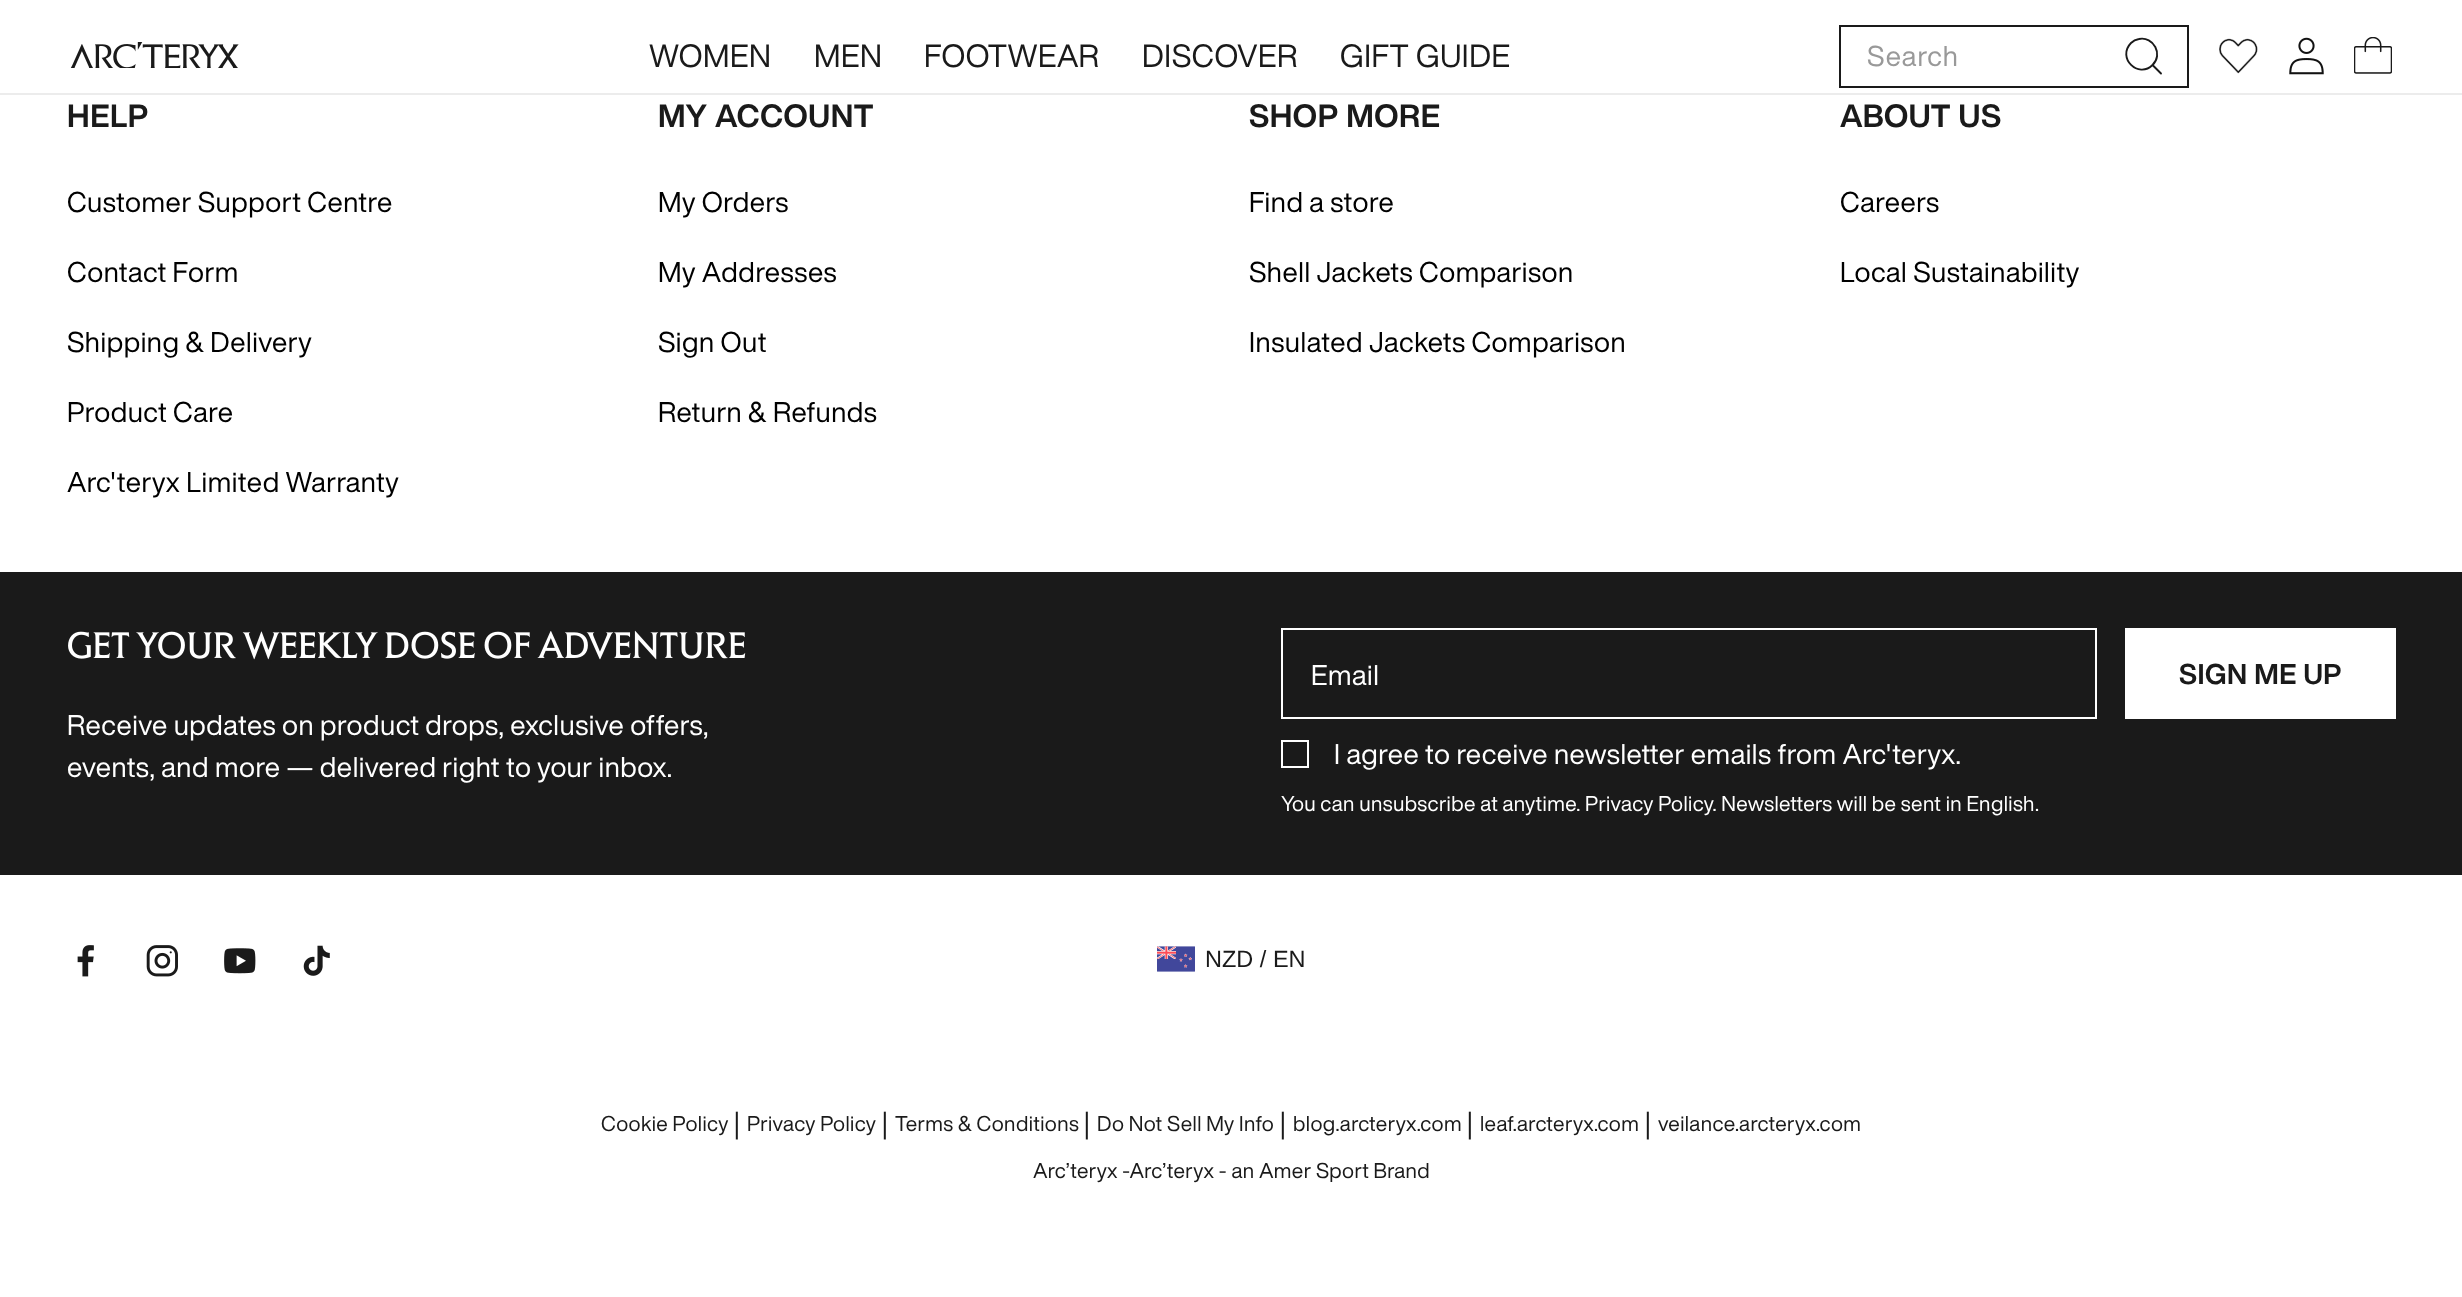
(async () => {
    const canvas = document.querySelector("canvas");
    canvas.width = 2462;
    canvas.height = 1297;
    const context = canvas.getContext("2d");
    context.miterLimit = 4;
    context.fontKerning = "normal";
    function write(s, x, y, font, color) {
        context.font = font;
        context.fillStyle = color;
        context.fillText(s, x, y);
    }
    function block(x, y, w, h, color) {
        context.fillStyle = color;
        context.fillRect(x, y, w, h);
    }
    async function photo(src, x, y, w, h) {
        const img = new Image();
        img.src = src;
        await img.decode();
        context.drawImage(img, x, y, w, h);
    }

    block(0, 0, 2462, 1297, "rgb(255, 255, 255)");
    block(0, 93, 2462, 2, "rgb(236, 236, 236)");
    await photo("media/1.png", 70, 42, 169, 26);
    context.letterSpacing = "0.6px";
    write("WOMEN", 649, 67, "31.5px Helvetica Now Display", "rgb(26, 26, 26)");
    write("MEN", 814, 67, "31.5px Helvetica Now Display", "rgb(26, 26, 26)");
    write("FOOTWEAR", 924, 67, "31.5px Helvetica Now Display", "rgb(26, 26, 26)");
    write("DISCOVER", 1142, 67, "31.5px Helvetica Now Display", "rgb(26, 26, 26)");
    write("GIFT GUIDE", 1340, 67, "31.5px Helvetica Now Display", "rgb(26, 26, 26)");
    context.strokeStyle = "rgb(26, 26, 26)";
    context.lineWidth = 2;
    context.strokeRect(1840, 26, 348, 61);
    context.letterSpacing = "1px";
    write("Search", 1867, 66, "28px Helvetica Now Display", "rgb(153, 153, 153)");
    context.beginPath();
    context.moveTo(2161, 73.5);
    context.lineTo(2152.5, 65);
    context.moveTo(2152.5, 65);
    context.bezierCurveTo(2163.5, 54.5, 2153.5, 36, 2139, 39);
    context.bezierCurveTo(2136, 39.5, 2133, 41, 2131, 43);
    context.bezierCurveTo(2116.5, 58, 2138.5, 79, 2152.5, 65);
    context.closePath();
    context.lineWidth = 1.9;
    context.lineCap = "round";
    context.lineJoin = "round";
    context.stroke();
    await photo("media/2.png", 2219, 38, 39, 36);
    await photo("media/3.png", 2289, 37, 35, 38);
    await photo("media/4.png", 2354, 37, 38, 37);
    context.letterSpacing = "0.6px";
    write("HELP", 67, 127, "bold 31.5px Helvetica Now Display", "rgb(26, 26, 26)");
    context.letterSpacing = "0.55px";
    write("Customer Support Centre", 67, 212, "28px Helvetica Now Display", "rgb(0, 0, 0)");
    write("Contact Form", 67, 282, "28px Helvetica Now Display", "rgb(0, 0, 0)");
    write("Shipping & Delivery", 67, 352, "28px Helvetica Now Display", "rgb(0, 0, 0)");
    write("Product Care", 67, 422, "28px Helvetica Now Display", "rgb(0, 0, 0)");
    write("Arc'teryx Limited Warranty", 67, 492, "28px Helvetica Now Display", "rgb(0, 0, 0)");
    context.letterSpacing = "0.6px";
    write("MY ACCOUNT", 658, 127, "bold 31.5px Helvetica Now Display", "rgb(26, 26, 26)");
    context.letterSpacing = "0.55px";
    write("My Orders", 658, 212, "28px Helvetica Now Display", "rgb(0, 0, 0)");
    write("My Addresses", 658, 282, "28px Helvetica Now Display", "rgb(0, 0, 0)");
    write("Sign Out", 658, 352, "28px Helvetica Now Display", "rgb(0, 0, 0)");
    write("Return & Refunds", 658, 422, "28px Helvetica Now Display", "rgb(0, 0, 0)");
    context.letterSpacing = "0.6px";
    write("SHOP MORE", 1249, 127, "bold 31.5px Helvetica Now Display", "rgb(26, 26, 26)");
    context.letterSpacing = "0.55px";
    write("Find a store", 1249, 212, "28px Helvetica Now Display", "rgb(0, 0, 0)");
    write("Shell Jackets Comparison", 1249, 282, "28px Helvetica Now Display", "rgb(0, 0, 0)");
    write("Insulated Jackets Comparison", 1249, 352, "28px Helvetica Now Display", "rgb(0, 0, 0)");
    context.letterSpacing = "0.6px";
    write("ABOUT US", 1840, 127, "bold 31.5px Helvetica Now Display", "rgb(26, 26, 26)");
    context.letterSpacing = "0.55px";
    write("Careers", 1840, 212, "28px Helvetica Now Display", "rgb(0, 0, 0)");
    write("Local Sustainability", 1840, 282, "28px Helvetica Now Display", "rgb(0, 0, 0)");
    block(0, 572, 2462, 303, "rgb(26, 26, 26)");
    await photo("media/5.png", 68, 630, 678, 30);
    write("Receive updates on product drops, exclusive offers,", 67, 735, "28px Helvetica Now Display", "rgb(255, 255, 255)");
    write("events, and more — delivered right to your inbox.", 67, 777, "28px Helvetica Now Display", "rgb(255, 255, 255)");
    context.strokeStyle = "rgb(255, 255, 255)";
    context.lineWidth = 2;
    context.lineJoin = "miter";
    context.strokeRect(1282, 629, 814, 89);
    block(2125, 628, 271, 91, "rgb(255, 255, 255)");
    write("SIGN ME UP", 2179, 684, "bold 28px Helvetica Now Display", "rgb(26, 26, 26)");
    write("Email", 1311, 685, "28px Helvetica Now Display", "rgb(255, 255, 255)");
    context.beginPath();
    context.rect(1282, 741, 26, 26);
    context.stroke();
    write("I agree to receive newsletter emails from Arc'teryx.", 1334, 764, "28px Helvetica Now Display", "rgb(255, 255, 255)");
    context.letterSpacing = "0.42px";
    write("You can unsubscribe at anytime. Privacy Policy. Newsletters will be sent in English.", 1281, 811, "21px Helvetica Now Display", "rgb(255, 255, 255)");
    await photo("media/6.png", 77, 945, 17, 32);
    await photo("media/7.png", 146, 945, 32, 32);
    await photo("media/8.png", 224, 948, 32, 26);
    await photo("media/9.png", 303, 945, 27, 31);
    await photo("media/10.png", 1157, 946, 38, 26);
    context.letterSpacing = "0px";
    write("NZD / EN", 1205, 967, "23.5px Liberation Sans", "rgb(26, 26, 26)");
    context.letterSpacing = "0.42px";
    write("Cookie Policy", 601, 1131, "21px Helvetica Now Display", "rgb(26, 26, 26)");
    write("|", 734, 1134, "28px Helvetica Now Display", "rgb(26, 26, 26)");
    write("Privacy Policy", 747, 1131, "21px Helvetica Now Display", "rgb(26, 26, 26)");
    write("|", 882, 1134, "28px Helvetica Now Display", "rgb(26, 26, 26)");
    write("Terms & Conditions", 895, 1131, "21px Helvetica Now Display", "rgb(26, 26, 26)");
    write("|", 1084, 1134, "28px Helvetica Now Display", "rgb(26, 26, 26)");
    write("Do Not Sell My Info", 1097, 1131, "21px Helvetica Now Display", "rgb(26, 26, 26)");
    write("|", 1280, 1134, "28px Helvetica Now Display", "rgb(26, 26, 26)");
    write("blog.arcteryx.com", 1293, 1131, "21px Helvetica Now Display", "rgb(26, 26, 26)");
    write("|", 1467, 1134, "28px Helvetica Now Display", "rgb(26, 26, 26)");
    write("leaf.arcteryx.com", 1480, 1131, "21px Helvetica Now Display", "rgb(26, 26, 26)");
    write("|", 1645, 1134, "28px Helvetica Now Display", "rgb(26, 26, 26)");
    write("veilance.arcteryx.com", 1658, 1131, "21px Helvetica Now Display", "rgb(26, 26, 26)");
    write("Arc’teryx -Arc’teryx - an Amer Sport Brand", 1033, 1178, "21px Helvetica Now Display", "rgb(26, 26, 26)");
})();
